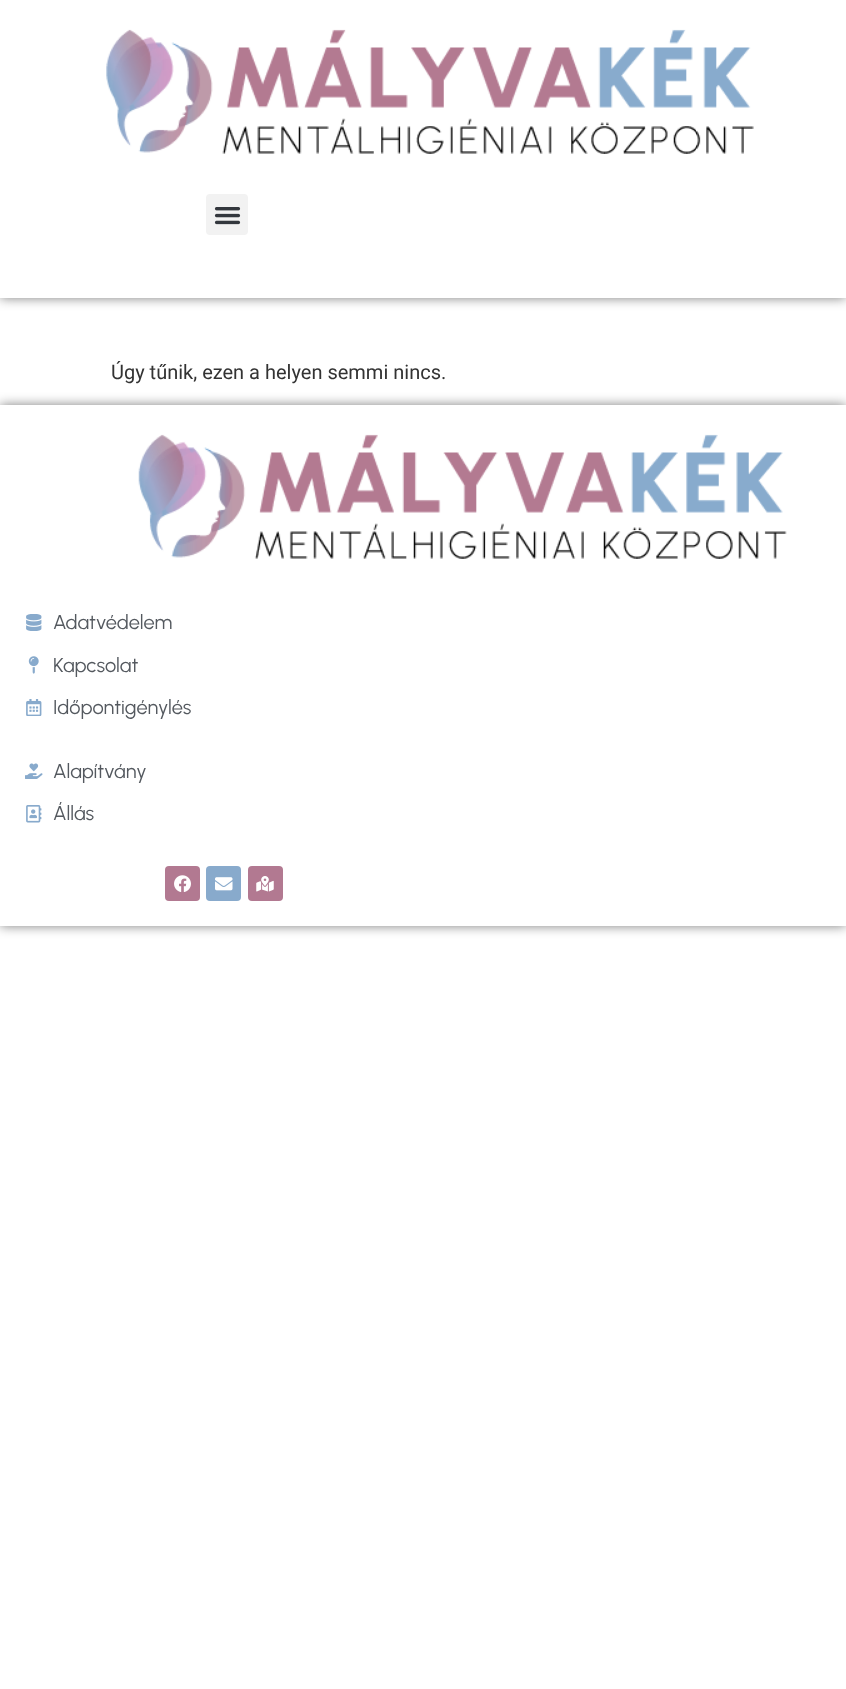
(async () => {
    const canvas = document.querySelector("canvas");
    canvas.width = 846;
    canvas.height = 1689;
    const context = canvas.getContext("2d");
    context.miterLimit = 4;
    context.fontKerning = "normal";
    function write(s, x, y, font, color) {
        context.font = font;
        context.fillStyle = color;
        context.fillText(s, x, y);
    }
    function block(x, y, w, h, color) {
        context.fillStyle = color;
        context.fillRect(x, y, w, h);
    }
    function card(x, y, w, h, r, color) {
        context.fillStyle = color;
        context.beginPath();
        context.roundRect(x, y, w, h, r);
        context.fill();
    }
    async function photo(src, x, y, w, h) {
        const img = new Image();
        img.src = src;
        await img.decode();
        context.drawImage(img, x, y, w, h);
    }

    block(0, 0, 846, 1689, "rgb(255, 255, 255)");
    context.fillStyle = "rgba(0, 0, 0, 0.5)";
    context.filter = "blur(6px)";
    context.beginPath();
    context.rect(0, 0, 846, 298);
    context.fill();
    context.filter = "none";
    block(0, 0, 846, 298, "rgb(255, 255, 255)");
    await photo("media/1.png", 106, 29, 648, 125);
    card(206, 194, 42, 41, 4, "rgb(242, 242, 242)");
    await photo("media/2.png", 214, 207, 27, 18);
    write("Úgy tűnik, ezen a helyen semmi nincs.", 111, 379, "20px Roboto", "rgb(51, 51, 51)");
    context.save();
    context.beginPath();
    context.moveTo(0, 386);
    context.lineTo(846, 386);
    context.lineTo(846, 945);
    context.lineTo(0, 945);
    context.closePath();
    context.moveTo(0, 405);
    context.lineTo(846, 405);
    context.lineTo(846, 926);
    context.lineTo(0, 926);
    context.closePath();
    context.clip("evenodd");
    context.fillStyle = "rgba(0, 0, 0, 0.5)";
    context.filter = "blur(6px)";
    context.beginPath();
    context.rect(0, 405, 846, 521);
    context.fill();
    context.filter = "none";
    context.restore();
    await photo("media/3.png", 138, 434, 649, 125);
    await photo("media/4.png", 26, 614, 16, 17);
    write("Adatvédelem", 53, 629, "20px Urbanist", "rgb(84, 89, 95)");
    await photo("media/5.png", 28, 656, 11, 18);
    write("Kapcsolat", 53, 672, "20px Urbanist", "rgb(84, 89, 95)");
    await photo("media/6.png", 26, 699, 16, 17);
    write("Időpontigénylés", 53, 714, "20px Urbanist", "rgb(84, 89, 95)");
    await photo("media/7.png", 25, 763, 18, 16);
    write("Alapítvány", 53, 778, "20px Urbanist", "rgb(84, 89, 95)");
    await photo("media/8.png", 26, 805, 16, 18);
    write("Állás", 53, 820, "20px Urbanist", "rgb(84, 89, 95)");
    card(165, 866, 35, 35, 4, "rgb(178, 121, 145)");
    await photo("media/9.png", 174, 875, 17, 17);
    card(206, 866, 35, 35, 4, "rgb(136, 170, 204)");
    await photo("media/10.png", 215, 877, 18, 14);
    card(248, 866, 35, 35, 4, "rgb(178, 121, 145)");
    await photo("media/11.png", 256, 876, 18, 16);
})();
